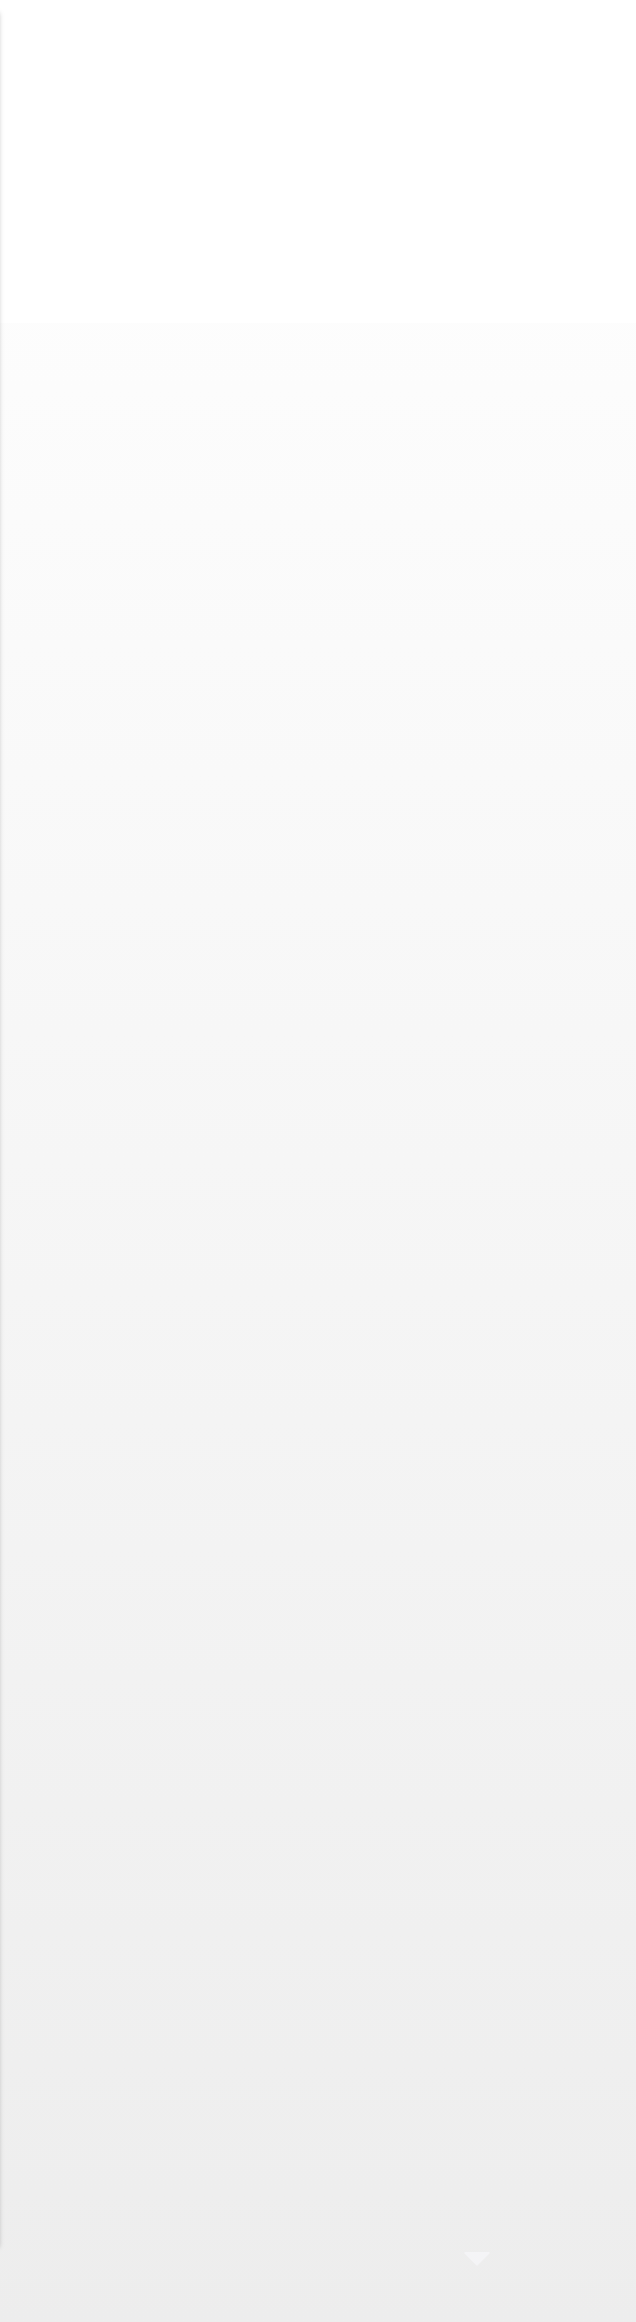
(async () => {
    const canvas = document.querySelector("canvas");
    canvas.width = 636;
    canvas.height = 2322;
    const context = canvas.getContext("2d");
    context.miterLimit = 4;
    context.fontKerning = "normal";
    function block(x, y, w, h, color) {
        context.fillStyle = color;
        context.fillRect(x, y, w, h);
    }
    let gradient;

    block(0, 0, 636, 2322, "rgb(255, 255, 255)");
    gradient = context.createLinearGradient(318, 0, 318, 2322);
    gradient.addColorStop(0, "rgb(255, 255, 255)");
    gradient.addColorStop(1, "rgb(237, 237, 237)");
    context.fillStyle = gradient;
    context.fillRect(0, 323, 636, 1999);
    context.fillStyle = "rgba(0, 0, 0, 0.25)";
    context.filter = "blur(2.5px)";
    context.beginPath();
    context.rect(-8, 13, 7, 2234);
    context.fill();
    context.filter = "none";
    context.fillStyle = "rgb(244, 244, 246)";
    context.beginPath();
    context.moveTo(464, 2253);
    context.lineTo(490, 2253);
    context.lineTo(477, 2266);
    context.closePath();
    context.fill();
    context.beginPath();
    context.moveTo(464, 2252);
    context.lineTo(490, 2252);
    context.lineTo(477, 2265);
    context.closePath();
    context.fill();
})();
